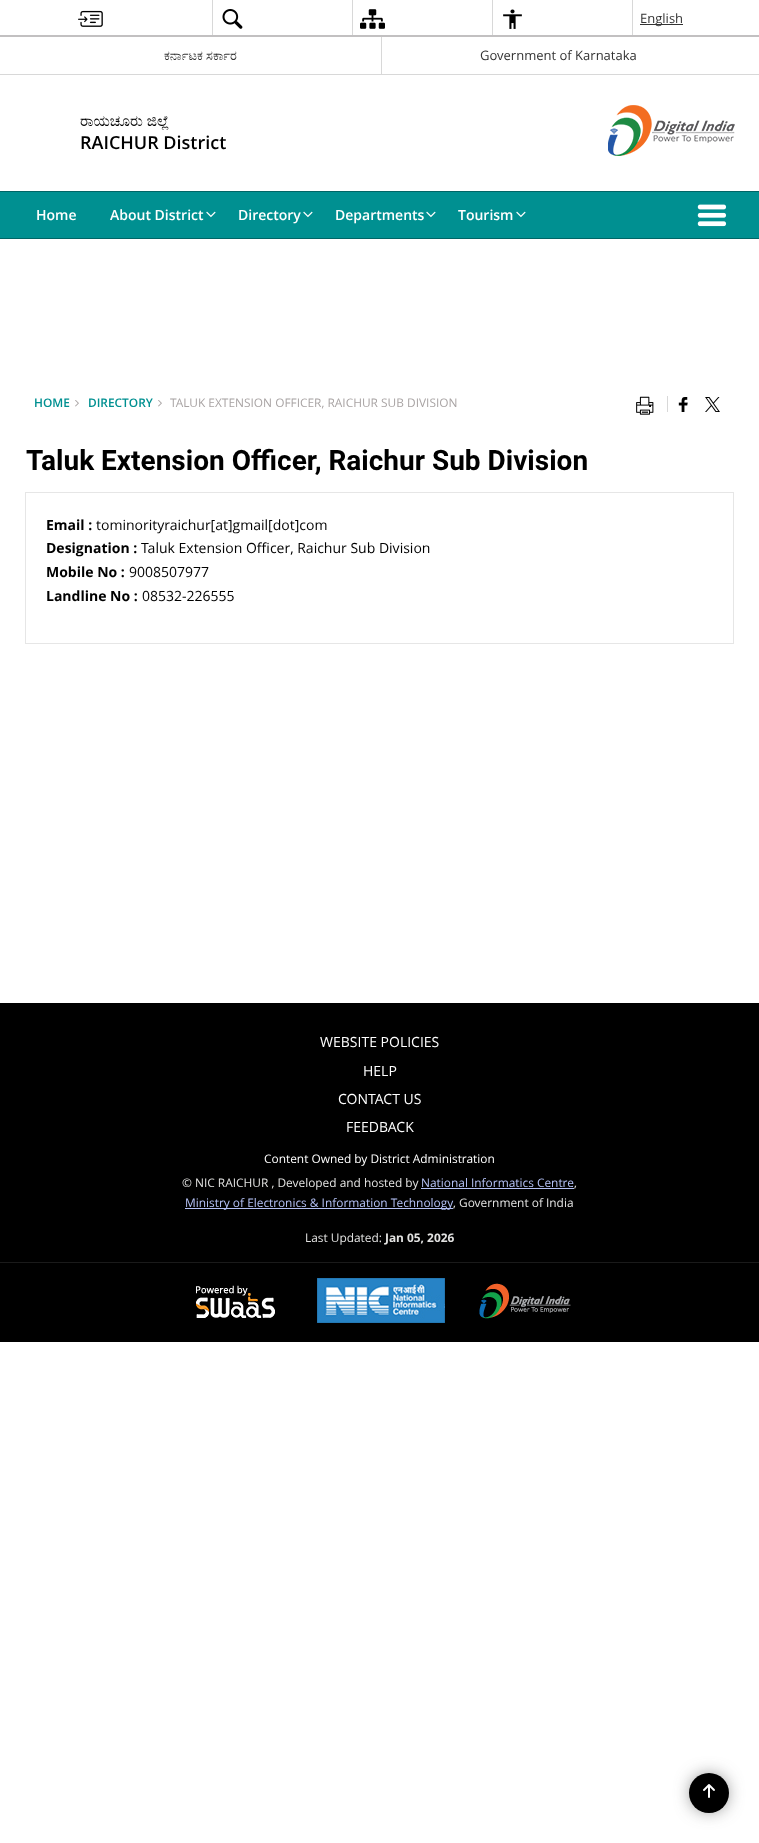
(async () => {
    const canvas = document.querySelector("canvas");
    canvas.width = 759;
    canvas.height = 1843;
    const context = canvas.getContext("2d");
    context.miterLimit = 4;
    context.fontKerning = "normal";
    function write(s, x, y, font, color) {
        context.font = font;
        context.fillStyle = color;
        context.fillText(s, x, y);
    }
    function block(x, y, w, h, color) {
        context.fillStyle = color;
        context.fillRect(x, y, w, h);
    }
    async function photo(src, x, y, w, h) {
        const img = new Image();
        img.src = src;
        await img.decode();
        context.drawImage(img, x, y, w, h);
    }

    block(0, 0, 759, 1843, "rgb(255, 255, 255)");
    block(0, 74, 759, 1, "rgb(216, 216, 216)");
    await photo("media/1.png", 78, 10, 25, 17);
    block(212, 0, 1, 37, "rgb(216, 216, 216)");
    await photo("media/2.png", 222, 9, 21, 20);
    block(352, 0, 1, 37, "rgb(216, 216, 216)");
    await photo("media/3.png", 360, 9, 25, 20);
    block(492, 0, 1, 37, "rgb(216, 216, 216)");
    await photo("media/4.png", 503, 9, 19, 20);
    block(632, 0, 1, 37, "rgb(216, 216, 216)");
    block(640, 24, 43, 1, "rgb(51, 51, 51)");
    write("English", 640, 23, "13px Open Sans", "rgb(51, 51, 51)");
    write("ಕರ್ನಾಟಕ ಸರ್ಕಾರ", 164, 60, "13px FreeSerif", "rgb(51, 51, 51)");
    block(381, 37, 1, 37, "rgb(216, 216, 216)");
    write("Government of Karnataka", 480, 60, "13px Open Sans", "rgb(51, 51, 51)");
    block(0, 35, 759, 2, "rgb(194, 192, 193)");
    write("ರಾಯಚೂರು ಜಿಲ್ಲೆ", 80, 126, "15.25px FreeSerif", "rgb(0, 0, 0)");
    write("RAICHUR District", 80, 149, "600 18px Open Sans", "rgb(0, 0, 0)");
    await photo("media/5.png", 608, 105, 127, 51);
    block(0, 192, 759, 46, "rgb(0, 144, 145)");
    block(0, 191, 759, 1, "rgb(0, 101, 102)");
    block(0, 238, 759, 1, "rgb(0, 101, 102)");
    write("Home", 36, 220, "600 14px Open Sans", "rgb(255, 255, 255)");
    write("About District", 110, 220, "600 14px Open Sans", "rgb(255, 255, 255)");
    await photo("media/6.png", 206, 211, 10, 7);
    write("Directory", 238, 220, "600 14px Open Sans", "rgb(255, 255, 255)");
    await photo("media/6.png", 303, 211, 10, 7);
    write("Departments", 335, 220, "600 14px Open Sans", "rgb(255, 255, 255)");
    await photo("media/6.png", 426, 211, 10, 7);
    write("Tourism", 458, 220, "600 14px Open Sans", "rgb(255, 255, 255)");
    await photo("media/6.png", 516, 211, 10, 7);
    await photo("media/7.png", 697, 204, 30, 23);
    write("HOME", 34, 407, "600 11.9px Open Sans", "rgb(0, 144, 145)");
    await photo("media/8.png", 75, 400, 4, 7);
    write("DIRECTORY", 88, 407, "600 11.9px Open Sans", "rgb(0, 144, 145)");
    await photo("media/8.png", 158, 400, 4, 7);
    write("TALUK EXTENSION OFFICER, RAICHUR SUB DIVISION", 170, 407, "11.9px Open Sans", "rgb(168, 163, 163)");
    await photo("media/9.png", 636, 396, 18, 19);
    block(667, 396, 1, 16, "rgb(216, 216, 216)");
    await photo("media/10.png", 678, 397, 10, 15);
    await photo("media/11.png", 705, 397, 15, 15);
    write("Taluk Extension Officer, Raichur Sub Division", 26, 470, "bold 28px Roboto", "rgb(0, 0, 0)");
    context.strokeStyle = "rgb(230, 230, 230)";
    context.strokeRect(25.5, 492.5, 708, 151);
    write("Email :", 46, 530, "bold 14px Open Sans", "rgb(0, 0, 0)");
    write("tominorityraichur[at]gmail[dot]com", 96, 530, "14px Open Sans", "rgb(0, 0, 0)");
    write("Designation :", 46, 553, "bold 14px Open Sans", "rgb(0, 0, 0)");
    write("Taluk Extension Officer, Raichur Sub Division", 141, 553, "14px Open Sans", "rgb(0, 0, 0)");
    write("Mobile No :", 46, 577, "bold 14px Open Sans", "rgb(0, 0, 0)");
    write("9008507977", 129, 577, "14px Open Sans", "rgb(0, 0, 0)");
    write("Landline No :", 46, 601, "bold 14px Open Sans", "rgb(0, 0, 0)");
    write("08532-226555", 142, 601, "14px Open Sans", "rgb(0, 0, 0)");
    block(0, 1003, 759, 339, "rgb(0, 0, 0)");
    write("WEBSITE POLICIES", 320, 1047, "14px Open Sans", "rgb(255, 255, 255)");
    write("HELP", 363, 1076, "14px Open Sans", "rgb(255, 255, 255)");
    write("CONTACT US", 338, 1104, "14px Open Sans", "rgb(255, 255, 255)");
    write("FEEDBACK", 346, 1132, "14px Open Sans", "rgb(255, 255, 255)");
    write("Content Owned by District Administration", 264, 1163, "11.9px Open Sans", "rgb(255, 255, 255)");
    write("© NIC RAICHUR , Developed and hosted by", 182, 1187, "11.9px Open Sans", "rgb(226, 226, 225)");
    write("National Informatics Centre", 421, 1187, "11.9px Open Sans", "rgb(180, 193, 245)");
    block(421, 1188, 153, 1, "rgb(180, 193, 245)");
    write(",", 574, 1187, "11.9px Open Sans", "rgb(226, 226, 225)");
    block(185, 1208, 268, 1, "rgb(180, 193, 245)");
    write("Ministry of Electronics & Information Technology", 185, 1207, "11.9px Open Sans", "rgb(180, 193, 245)");
    write(", Government of India", 453, 1207, "11.9px Open Sans", "rgb(226, 226, 225)");
    write("Last Updated:", 305, 1242, "11.9px Open Sans", "rgb(226, 226, 225)");
    write("Jan 05, 2026", 385, 1242, "bold 11.9px Open Sans", "rgb(226, 226, 225)");
    block(0, 1262, 759, 1, "rgb(26, 26, 26)");
    await photo("media/12.png", 196, 1285, 79, 33);
    await photo("media/13.png", 317, 1278, 128, 45);
    await photo("media/14.png", 479, 1283, 92, 36);
    context.fillStyle = "rgb(60, 60, 60)";
    context.filter = "blur(9.5px)";
    context.beginPath();
    context.roundRect(694, 1778, 30, 30, 15);
    context.fill();
    context.filter = "none";
    context.fillStyle = "rgb(0, 0, 0)";
    context.beginPath();
    context.arc(709, 1793, 20, 0, Math.PI * 2);
    context.fill();
    await photo("media/15.png", 703, 1784, 12, 14);
})();
